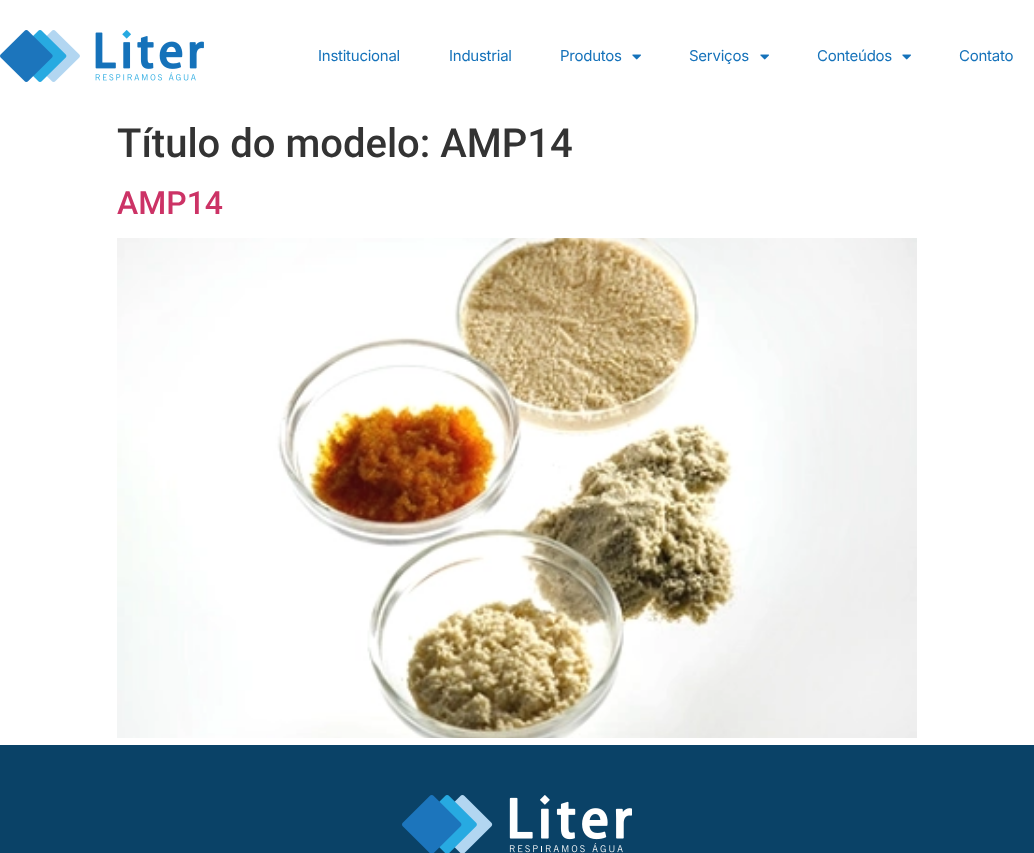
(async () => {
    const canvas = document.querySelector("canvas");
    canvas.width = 1034;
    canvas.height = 853;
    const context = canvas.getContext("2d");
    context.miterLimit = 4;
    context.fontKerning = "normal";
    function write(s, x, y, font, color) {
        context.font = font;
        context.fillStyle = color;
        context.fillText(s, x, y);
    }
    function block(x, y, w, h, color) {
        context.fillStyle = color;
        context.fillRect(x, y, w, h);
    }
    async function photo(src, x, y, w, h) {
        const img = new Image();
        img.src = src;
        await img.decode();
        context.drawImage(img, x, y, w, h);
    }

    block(0, 0, 1034, 853, "rgb(255, 255, 255)");
    await photo("media/1.png", 0, 30, 204, 52);
    context.letterSpacing = "-0.25px";
    write("Institucional", 318, 61, "15px Inter", "rgb(21, 114, 186)");
    write("Industrial", 449, 61, "15px Inter", "rgb(21, 114, 186)");
    write("Produtos", 560, 61, "15px Inter", "rgb(21, 114, 186)");
    await photo("media/2.png", 632, 54, 9, 6);
    write("Serviços", 689, 61, "15px Inter", "rgb(21, 114, 186)");
    await photo("media/2.png", 760, 54, 9, 6);
    write("Conteúdos", 817, 61, "15px Inter", "rgb(21, 114, 186)");
    await photo("media/2.png", 902, 54, 9, 6);
    write("Contato", 959, 61, "15px Inter", "rgb(21, 114, 186)");
    context.letterSpacing = "0px";
    write("Título do modelo: AMP14", 117, 157, "500 40px Roboto", "rgb(51, 51, 51)");
    write("AMP14", 117, 214, "500 32px Roboto", "rgb(204, 51, 102)");
    await photo("media/3.png", 117, 238, 800, 500);
    block(0, 745, 1034, 108, "rgb(10, 66, 103)");
    await photo("media/4.png", 402, 795, 230, 58);
})();
